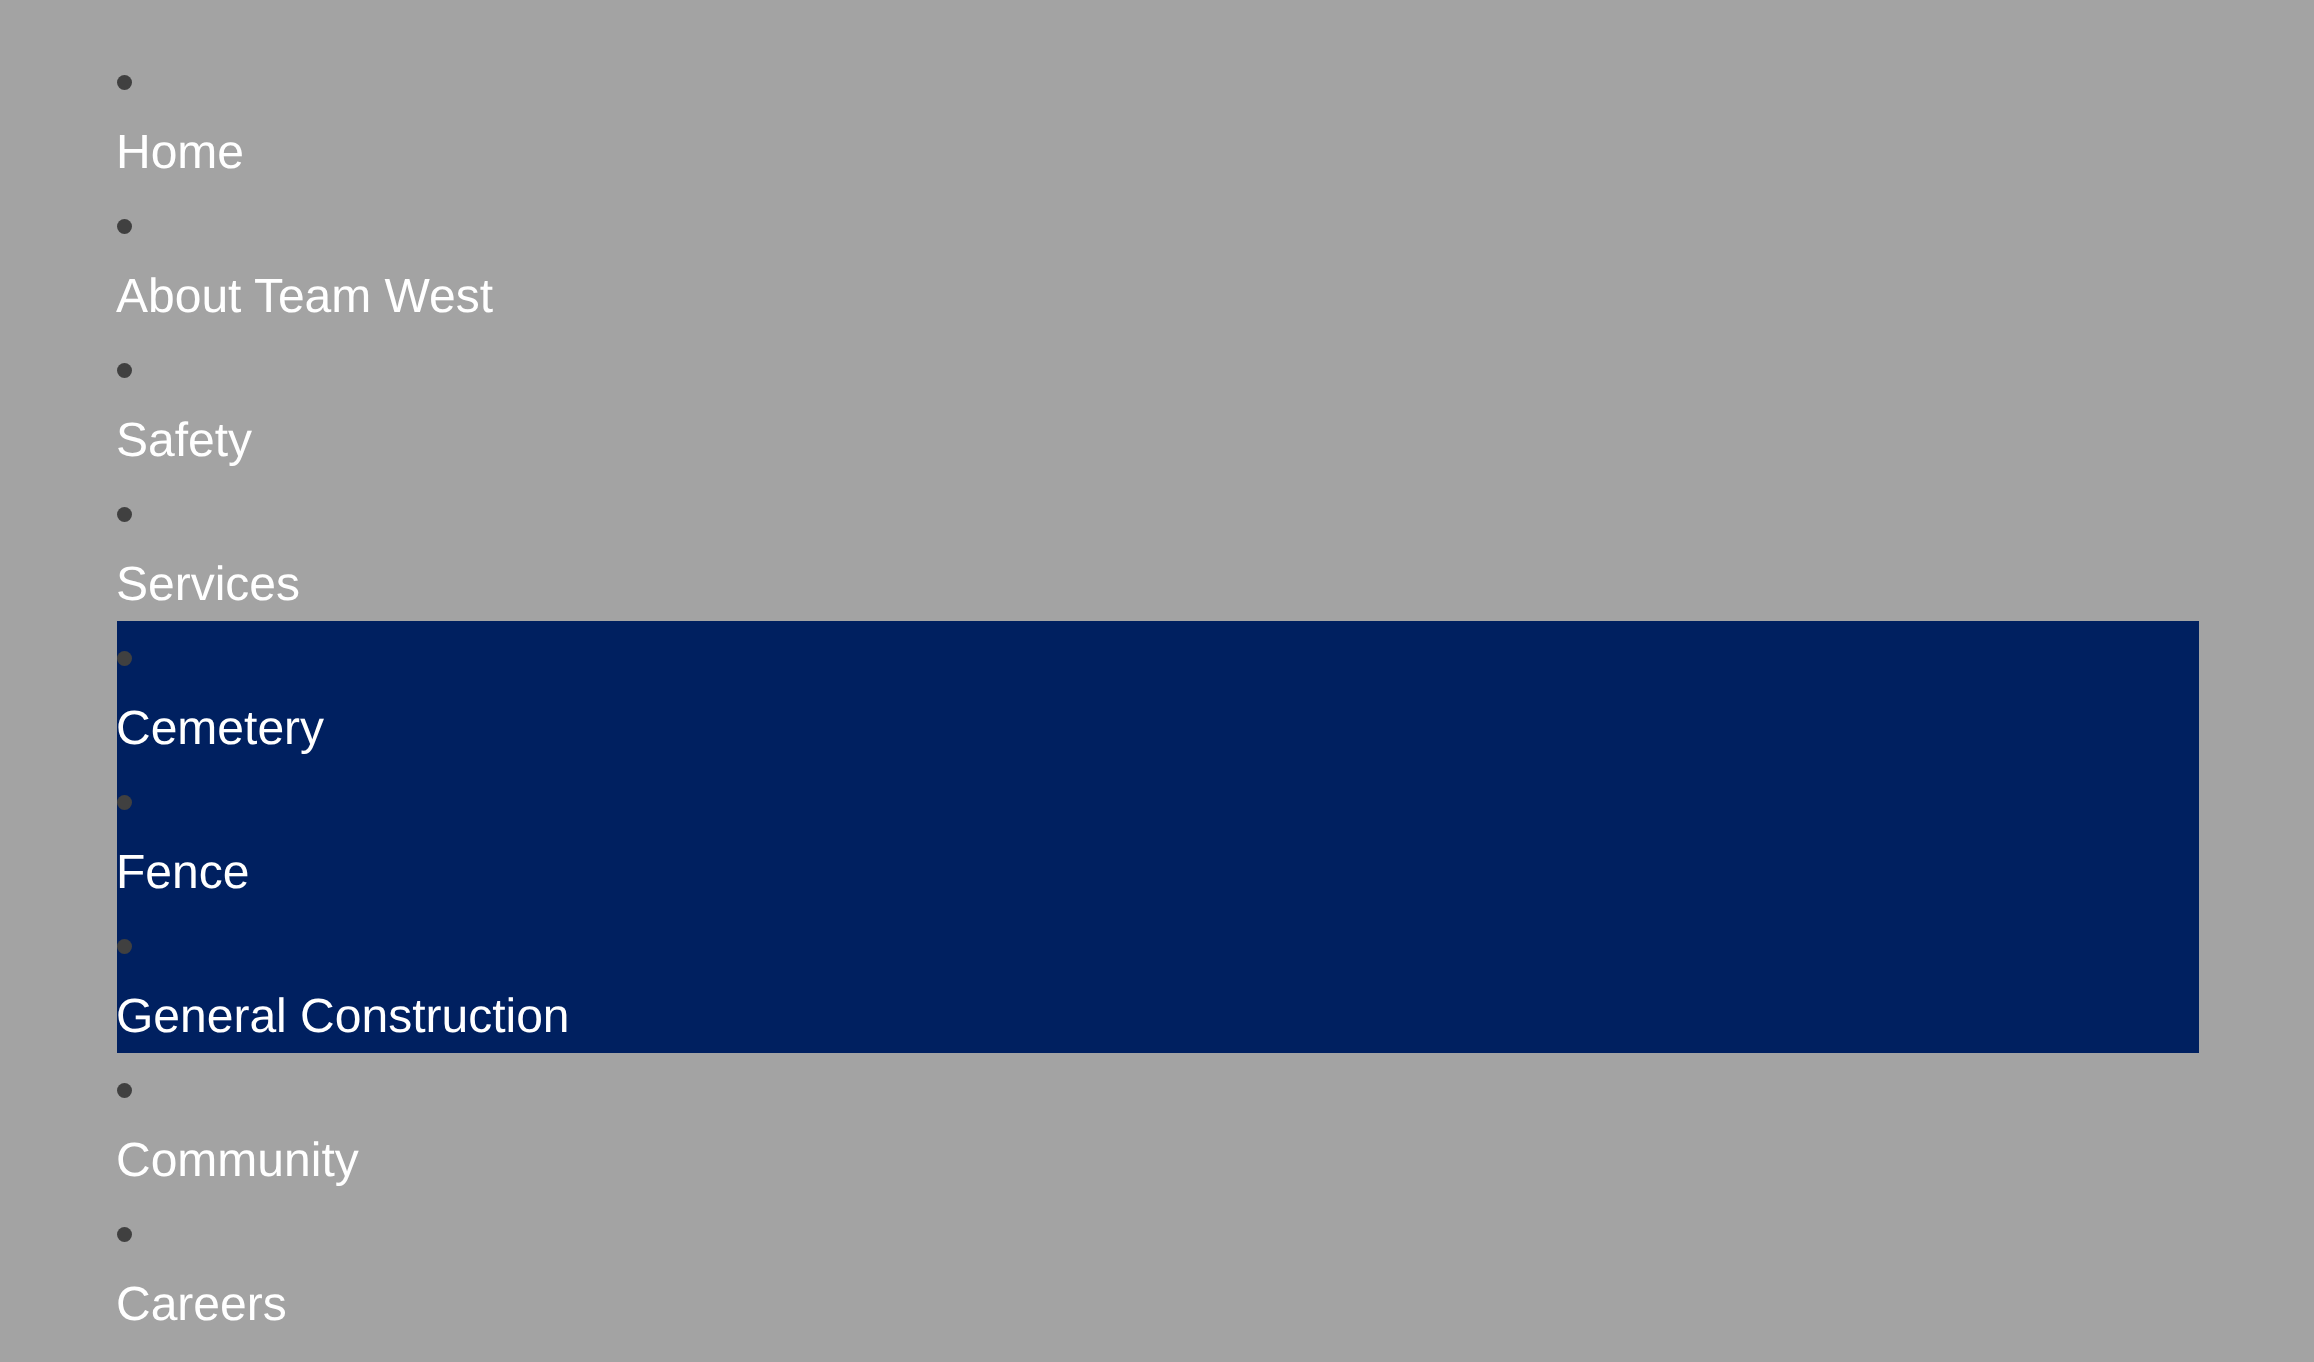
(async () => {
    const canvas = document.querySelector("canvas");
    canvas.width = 2314;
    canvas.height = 1362;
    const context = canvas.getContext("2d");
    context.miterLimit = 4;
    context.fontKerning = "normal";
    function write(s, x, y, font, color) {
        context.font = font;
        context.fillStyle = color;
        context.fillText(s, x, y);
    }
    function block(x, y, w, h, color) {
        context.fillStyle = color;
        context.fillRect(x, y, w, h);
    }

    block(0, 0, 2314, 1362, "rgb(163, 163, 163)");
    context.fillStyle = "rgb(64, 64, 64)";
    context.beginPath();
    context.arc(124.5, 82.5, 7.5, 0, Math.PI * 2);
    context.fill();
    write("Home", 116, 168, "48px Liberation Sans", "rgb(255, 255, 255)");
    context.fillStyle = "rgb(64, 64, 64)";
    context.beginPath();
    context.arc(124.5, 226.5, 7.5, 0, Math.PI * 2);
    context.fill();
    write("About Team West", 116, 312, "48px Liberation Sans", "rgb(255, 255, 255)");
    context.fillStyle = "rgb(64, 64, 64)";
    context.beginPath();
    context.arc(124.5, 370.5, 7.5, 0, Math.PI * 2);
    context.fill();
    write("Safety", 116, 456, "48px Liberation Sans", "rgb(255, 255, 255)");
    context.fillStyle = "rgb(64, 64, 64)";
    context.beginPath();
    context.arc(124.5, 514.5, 7.5, 0, Math.PI * 2);
    context.fill();
    write("Services", 116, 600, "48px Liberation Sans", "rgb(255, 255, 255)");
    block(117, 621, 2082, 432, "rgb(0, 32, 96)");
    context.fillStyle = "rgb(64, 64, 64)";
    context.beginPath();
    context.arc(124.5, 658.5, 7.5, 0, Math.PI * 2);
    context.fill();
    write("Cemetery", 116, 744, "48px Liberation Sans", "rgb(255, 255, 255)");
    context.fillStyle = "rgb(64, 64, 64)";
    context.beginPath();
    context.arc(124.5, 802.5, 7.5, 0, Math.PI * 2);
    context.fill();
    write("Fence", 116, 888, "48px Liberation Sans", "rgb(255, 255, 255)");
    context.fillStyle = "rgb(64, 64, 64)";
    context.beginPath();
    context.arc(124.5, 946.5, 7.5, 0, Math.PI * 2);
    context.fill();
    write("General Construction", 116, 1032, "48px Liberation Sans", "rgb(255, 255, 255)");
    context.fillStyle = "rgb(64, 64, 64)";
    context.beginPath();
    context.arc(124.5, 1090.5, 7.5, 0, Math.PI * 2);
    context.fill();
    write("Community", 116, 1176, "48px Liberation Sans", "rgb(255, 255, 255)");
    context.fillStyle = "rgb(64, 64, 64)";
    context.beginPath();
    context.arc(124.5, 1234.5, 7.5, 0, Math.PI * 2);
    context.fill();
    write("Careers", 116, 1320, "48px Liberation Sans", "rgb(255, 255, 255)");
})();
